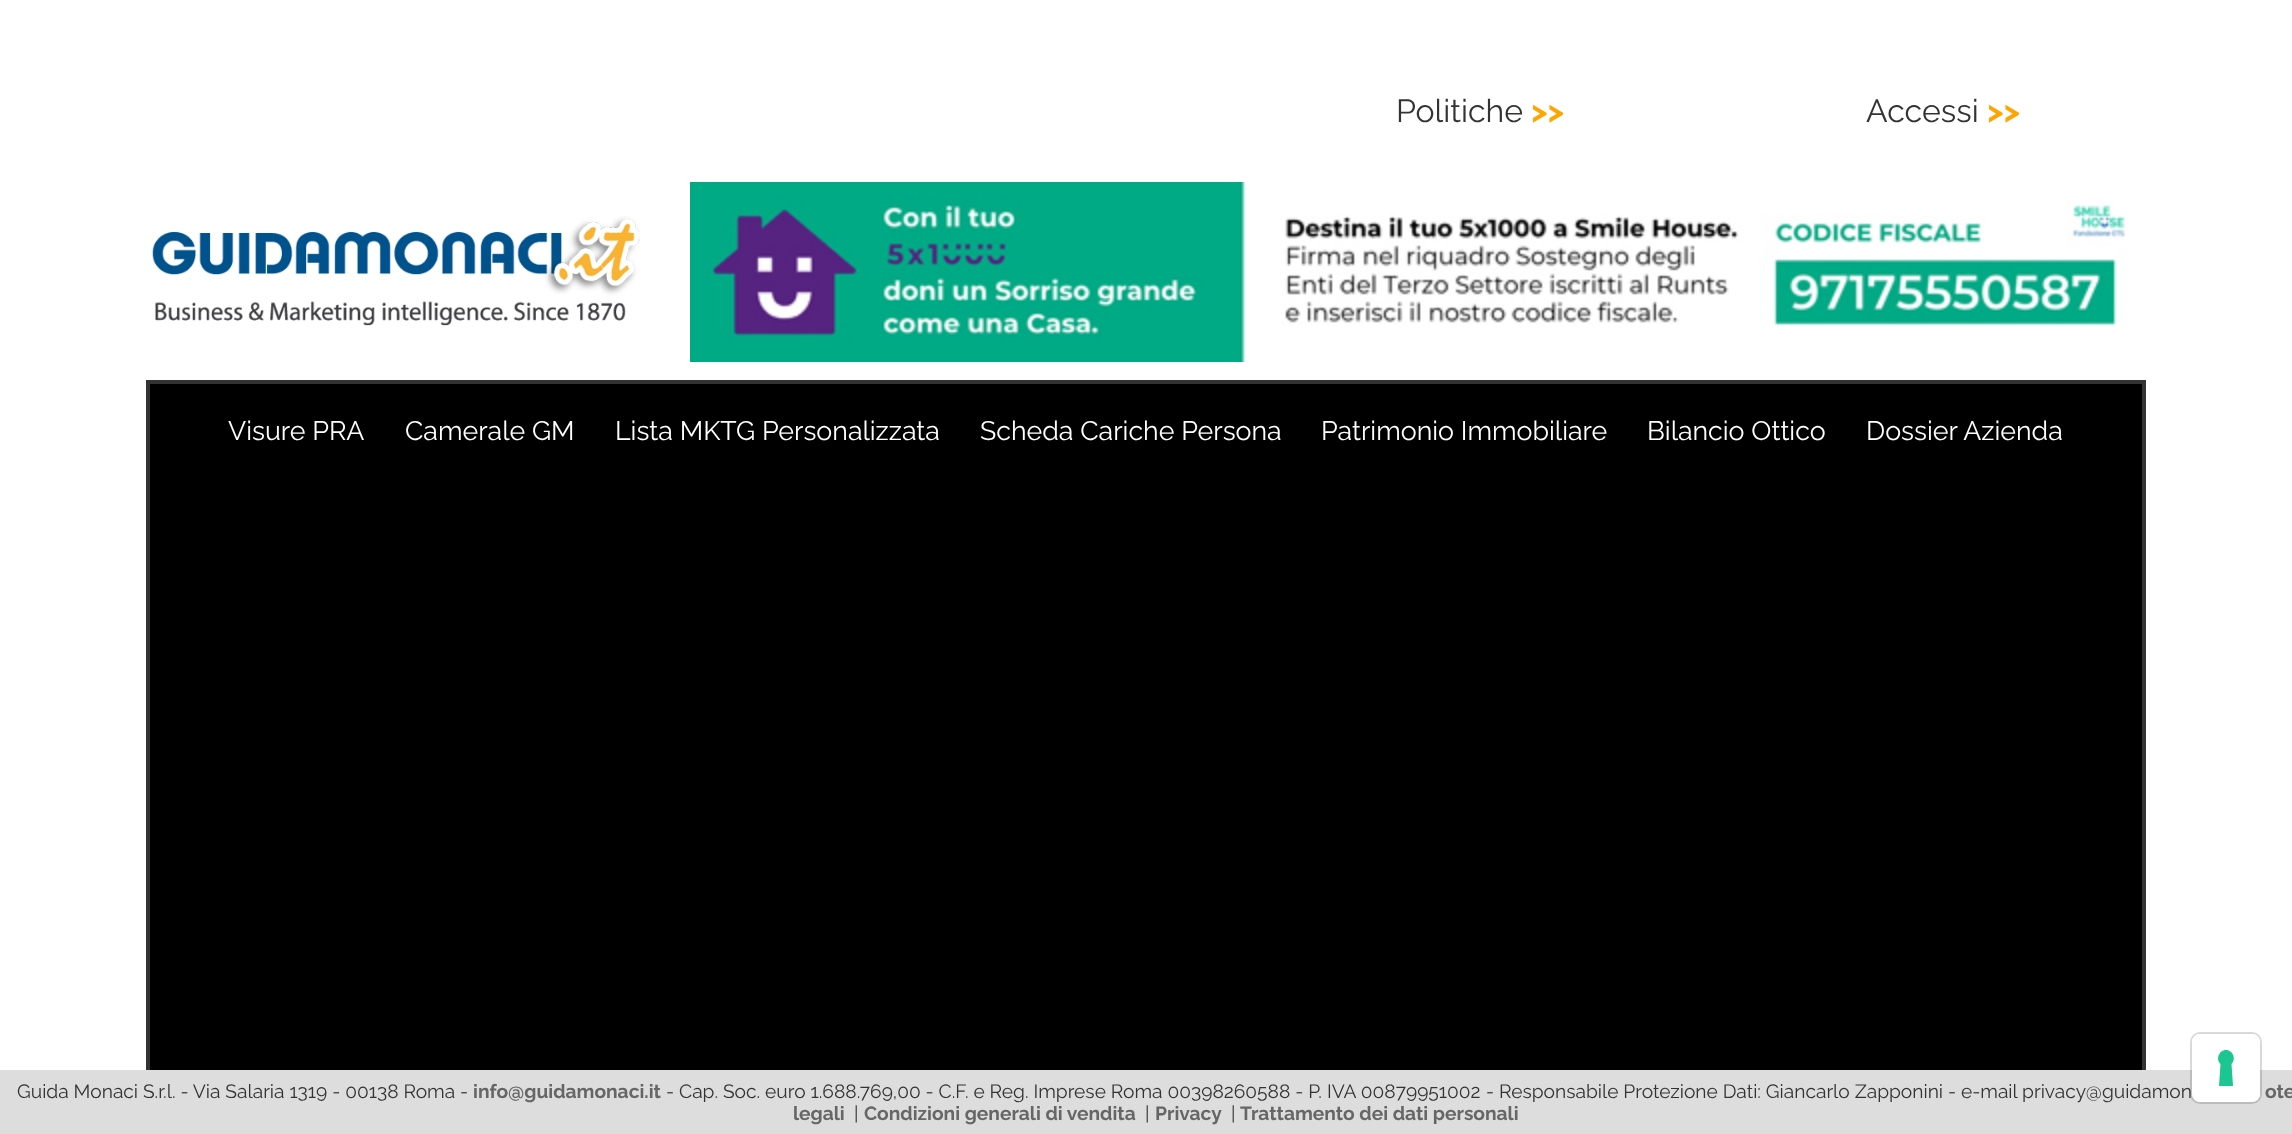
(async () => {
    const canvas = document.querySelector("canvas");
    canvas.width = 2292;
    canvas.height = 1134;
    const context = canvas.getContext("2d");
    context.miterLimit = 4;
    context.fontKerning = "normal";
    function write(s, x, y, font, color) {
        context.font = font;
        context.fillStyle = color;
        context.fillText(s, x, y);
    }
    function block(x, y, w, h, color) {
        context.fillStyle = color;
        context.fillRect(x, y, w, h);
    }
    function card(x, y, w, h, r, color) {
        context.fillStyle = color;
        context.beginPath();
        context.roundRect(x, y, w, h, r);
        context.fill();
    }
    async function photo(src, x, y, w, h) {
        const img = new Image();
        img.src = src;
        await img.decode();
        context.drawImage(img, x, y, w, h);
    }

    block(0, 0, 2292, 1134, "rgb(255, 255, 255)");
    write("Politiche", 1396, 122, "32px Raleway", "rgb(51, 51, 51)");
    write(">>", 1531, 122, "bold 32px Raleway", "rgb(255, 165, 0)");
    write("Accessi", 1866, 122, "32px Raleway", "rgb(51, 51, 51)");
    write(">>", 1987, 122, "bold 32px Raleway", "rgb(255, 165, 0)");
    await photo("media/1.png", 152, 216, 488, 110);
    await photo("media/2.png", 690, 182, 1436, 180);
    context.strokeStyle = "rgb(51, 51, 51)";
    context.lineWidth = 4;
    context.strokeRect(148, 382, 1996, 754);
    block(150, 384, 1992, 686, "rgb(0, 0, 0)");
    write("Visure PRA", 228, 440, "26.75px Raleway", "rgb(255, 255, 255)");
    write("Camerale GM", 405, 440, "26.75px Raleway", "rgb(255, 255, 255)");
    write("Lista MKTG Personalizzata", 615, 440, "26.75px Raleway", "rgb(255, 255, 255)");
    write("Scheda Cariche Persona", 980, 440, "26.75px Raleway", "rgb(255, 255, 255)");
    write("Patrimonio Immobiliare", 1321, 440, "26.75px Raleway", "rgb(255, 255, 255)");
    write("Bilancio Ottico", 1647, 440, "26.75px Raleway", "rgb(255, 255, 255)");
    write("Dossier Azienda", 1866, 440, "26.75px Raleway", "rgb(255, 255, 255)");
    block(0, 1070, 2292, 64, "rgb(221, 221, 221)");
    write("- Responsabile Protezione Dati: Giancarlo Zapponini - e-mail privacy@guidamon", 1486, 1098, "19.2px Raleway", "rgb(51, 51, 51)");
    context.beginPath();
    context.roundRect(2191, 1033, 70, 70, 9);
    context.strokeStyle = "rgba(0, 0, 0, 0.15)";
    context.lineWidth = 2;
    context.stroke();
    card(2192, 1034, 68, 68, 8, "rgb(255, 255, 255)");
    context.fillStyle = "rgb(28, 198, 145)";
    context.beginPath();
    context.moveTo(2226, 1050);
    context.bezierCurveTo(2233, 1050, 2236.5, 1059.5, 2231.5, 1064);
    context.lineTo(2233, 1086);
    context.lineTo(2219, 1086);
    context.lineTo(2220.5, 1064);
    context.bezierCurveTo(2215.5, 1059.5, 2219, 1050, 2226, 1050);
    context.closePath();
    context.fill("evenodd");
    write("Guida Monaci S.r.l. - Via Salaria 1319 - 00138 Roma -", 17, 1098, "19.2px Raleway", "rgb(51, 51, 51)");
    write("info@guidamonaci.it", 473, 1098, "bold 19.2px Raleway", "rgb(102, 102, 102)");
    write("- Cap. Soc. euro 1.688.769,00 - C.F. e Reg. Imprese Roma 00398260588 - P. IVA 00879951002", 666, 1098, "19.2px Raleway", "rgb(51, 51, 51)");
    write("ote", 2265, 1098, "bold 19.2px Raleway", "rgb(102, 102, 102)");
    write("legali", 793, 1120, "bold 19.2px Raleway", "rgb(102, 102, 102)");
    write("|", 854, 1120, "19.2px Raleway", "rgb(51, 51, 51)");
    write("Condizioni generali di vendita", 864, 1120, "bold 19.2px Raleway", "rgb(102, 102, 102)");
    write("|", 1145, 1120, "19.2px Raleway", "rgb(51, 51, 51)");
    write("Privacy", 1155, 1120, "bold 19.2px Raleway", "rgb(102, 102, 102)");
    write("|", 1231, 1120, "19.2px Raleway", "rgb(51, 51, 51)");
    write("Trattamento dei dati personali", 1240, 1120, "bold 19.2px Raleway", "rgb(102, 102, 102)");
})();
